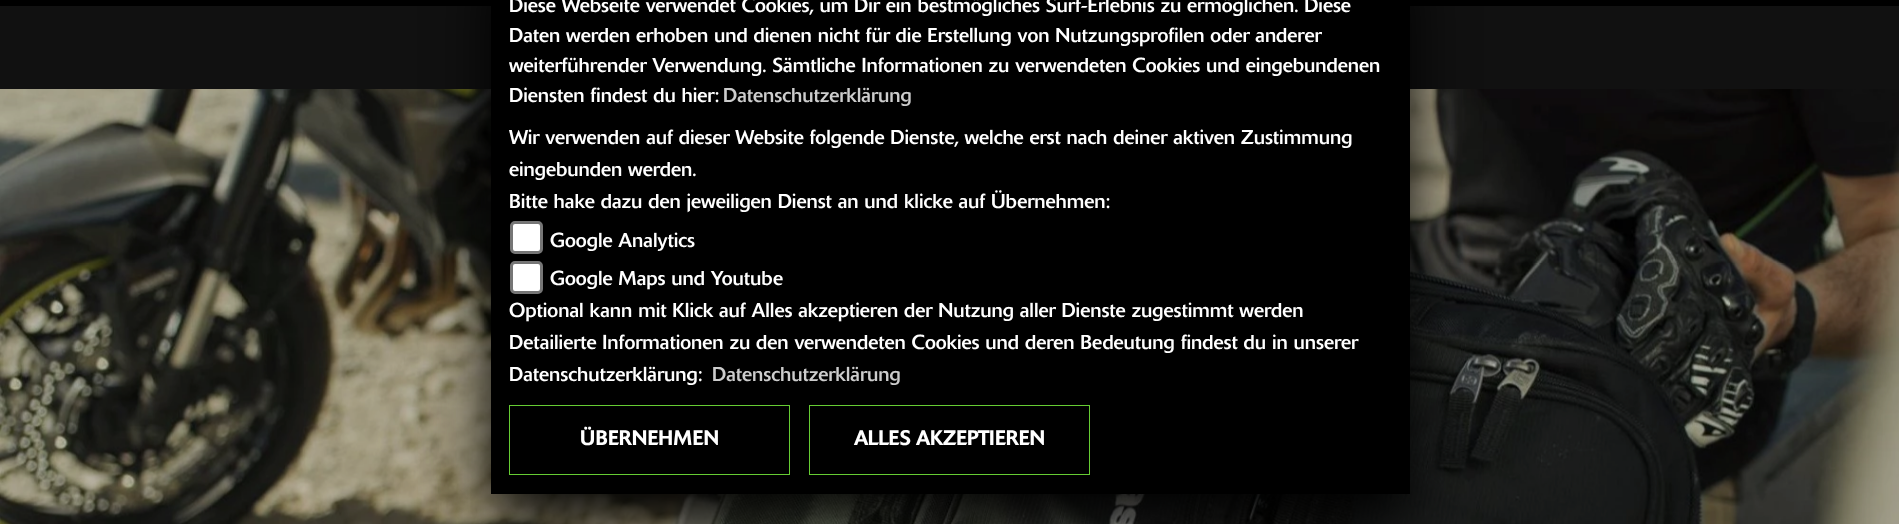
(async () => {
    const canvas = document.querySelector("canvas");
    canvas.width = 1899;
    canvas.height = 524;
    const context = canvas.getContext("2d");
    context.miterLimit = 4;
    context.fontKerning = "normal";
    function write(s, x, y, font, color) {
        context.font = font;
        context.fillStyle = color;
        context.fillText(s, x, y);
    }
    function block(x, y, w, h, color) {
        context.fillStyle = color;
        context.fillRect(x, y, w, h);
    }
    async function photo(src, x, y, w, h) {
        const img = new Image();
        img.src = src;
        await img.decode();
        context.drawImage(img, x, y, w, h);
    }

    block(0, 0, 1899, 524, "rgb(0, 0, 0)");
    block(0, 6, 1899, 83, "rgb(17, 17, 17)");
    await photo("media/1.png", 0, 89, 1899, 435);
    context.fillStyle = "rgb(0, 0, 0)";
    context.filter = "blur(31px)";
    context.beginPath();
    context.rect(491, -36, 919, 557);
    context.fill();
    context.filter = "none";
    block(491, 6, 919, 488, "rgb(0, 0, 0)");
    write("Diese Webseite verwendet Cookies, um Dir ein bestmögliches Surf-Erlebnis zu ermöglichen. Diese", 509, 12, "20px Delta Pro", "rgb(255, 255, 255)");
    write("Daten werden erhoben und dienen nicht für die Erstellung von Nutzungsprofilen oder anderer", 509, 42, "20px Delta Pro", "rgb(255, 255, 255)");
    write("weiterführender Verwendung. Sämtliche Informationen zu verwendeten Cookies und eingebundenen", 509, 72, "20px Delta Pro", "rgb(255, 255, 255)");
    write("Diensten findest du hier:", 509, 102, "20px Delta Pro", "rgb(255, 255, 255)");
    write("Datenschutzerklärung", 723, 102, "20px Delta Pro", "rgb(204, 204, 204)");
    write("Wir verwenden auf dieser Website folgende Dienste, welche erst nach deiner aktiven Zustimmung", 509, 144, "20px Delta Pro", "rgb(255, 255, 255)");
    write("eingebunden werden.", 509, 176, "20px Delta Pro", "rgb(255, 255, 255)");
    write("Bitte hake dazu den jeweiligen Dienst an und klicke auf Übernehmen:", 509, 208, "20px Delta Pro", "rgb(255, 255, 255)");
    context.beginPath();
    context.roundRect(511.5, 222.5, 30, 30, 3.5);
    context.fill();
    context.strokeStyle = "rgb(118, 118, 118)";
    context.lineWidth = 3;
    context.stroke();
    write("Google Analytics", 550, 247, "20px Delta Pro", "rgb(255, 255, 255)");
    context.beginPath();
    context.roundRect(511.5, 262.5, 30, 30, 3.5);
    context.fill();
    context.stroke();
    write("Google Maps und Youtube", 550, 285, "20px Delta Pro", "rgb(255, 255, 255)");
    write("Optional kann mit Klick auf Alles akzeptieren der Nutzung aller Dienste zugestimmt werden", 509, 317, "20px Delta Pro", "rgb(255, 255, 255)");
    write("Detailierte Informationen zu den verwendeten Cookies und deren Bedeutung findest du in unserer", 509, 349, "20px Delta Pro", "rgb(255, 255, 255)");
    write("Datenschutzerklärung:", 509, 381, "20px Delta Pro", "rgb(255, 255, 255)");
    write("Datenschutzerklärung", 712, 381, "20px Delta Pro", "rgb(204, 204, 204)");
    context.strokeStyle = "rgb(102, 204, 51)";
    context.lineWidth = 1;
    context.strokeRect(509.5, 405.5, 280, 69);
    write("ÜBERNEHMEN", 580, 445, "bold 20px Delta Pro", "rgb(255, 255, 255)");
    context.strokeRect(809.5, 405.5, 280, 69);
    write("ALLES AKZEPTIEREN", 854, 445, "bold 20px Delta Pro", "rgb(255, 255, 255)");
})();
